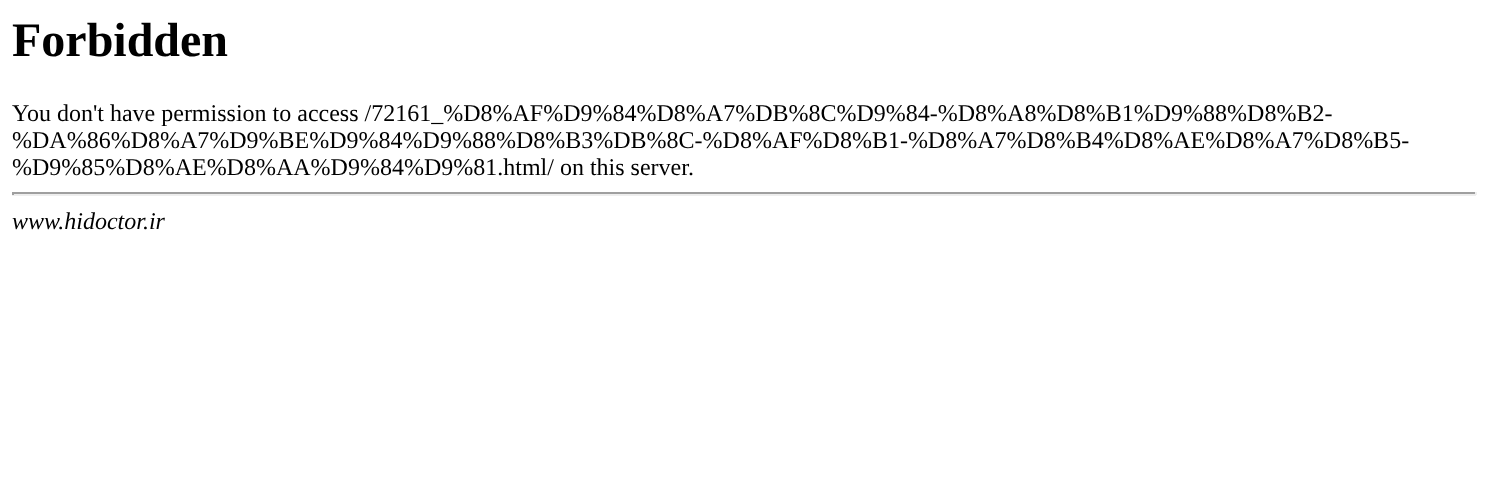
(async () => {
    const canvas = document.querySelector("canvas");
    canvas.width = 1487;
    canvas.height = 481;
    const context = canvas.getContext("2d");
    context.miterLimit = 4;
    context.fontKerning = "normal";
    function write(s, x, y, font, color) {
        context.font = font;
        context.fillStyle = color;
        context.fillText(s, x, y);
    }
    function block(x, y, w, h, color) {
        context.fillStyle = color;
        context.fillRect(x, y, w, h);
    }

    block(0, 0, 1487, 481, "rgb(255, 255, 255)");
    write("Forbidden", 12, 56, "bold 48px Liberation Serif", "rgb(0, 0, 0)");
    write("You don't have permission to access /72161_%D8%AF%D9%84%D8%A7%DB%8C%D9%84-%D8%A8%D8%B1%D9%88%D8%B2-", 12, 121, "24px Liberation Serif", "rgb(0, 0, 0)");
    write("%DA%86%D8%A7%D9%BE%D9%84%D9%88%D8%B3%DB%8C-%D8%AF%D8%B1-%D8%A7%D8%B4%D8%AE%D8%A7%D8%B5-", 12, 148, "24px Liberation Serif", "rgb(0, 0, 0)");
    write("%D9%85%D8%AE%D8%AA%D9%84%D9%81.html/ on this server.", 12, 175, "24px Liberation Serif", "rgb(0, 0, 0)");
    block(12, 192, 1464, 2, "rgb(159, 159, 159)");
    block(1475, 192, 2, 3, "rgb(238, 238, 238)");
    block(12, 194, 1464, 2, "rgb(238, 238, 238)");
    block(12, 192, 2, 3, "rgb(159, 159, 159)");
    write("www.hidoctor.ir", 12, 229, "italic 24px Liberation Serif", "rgb(0, 0, 0)");
})();
